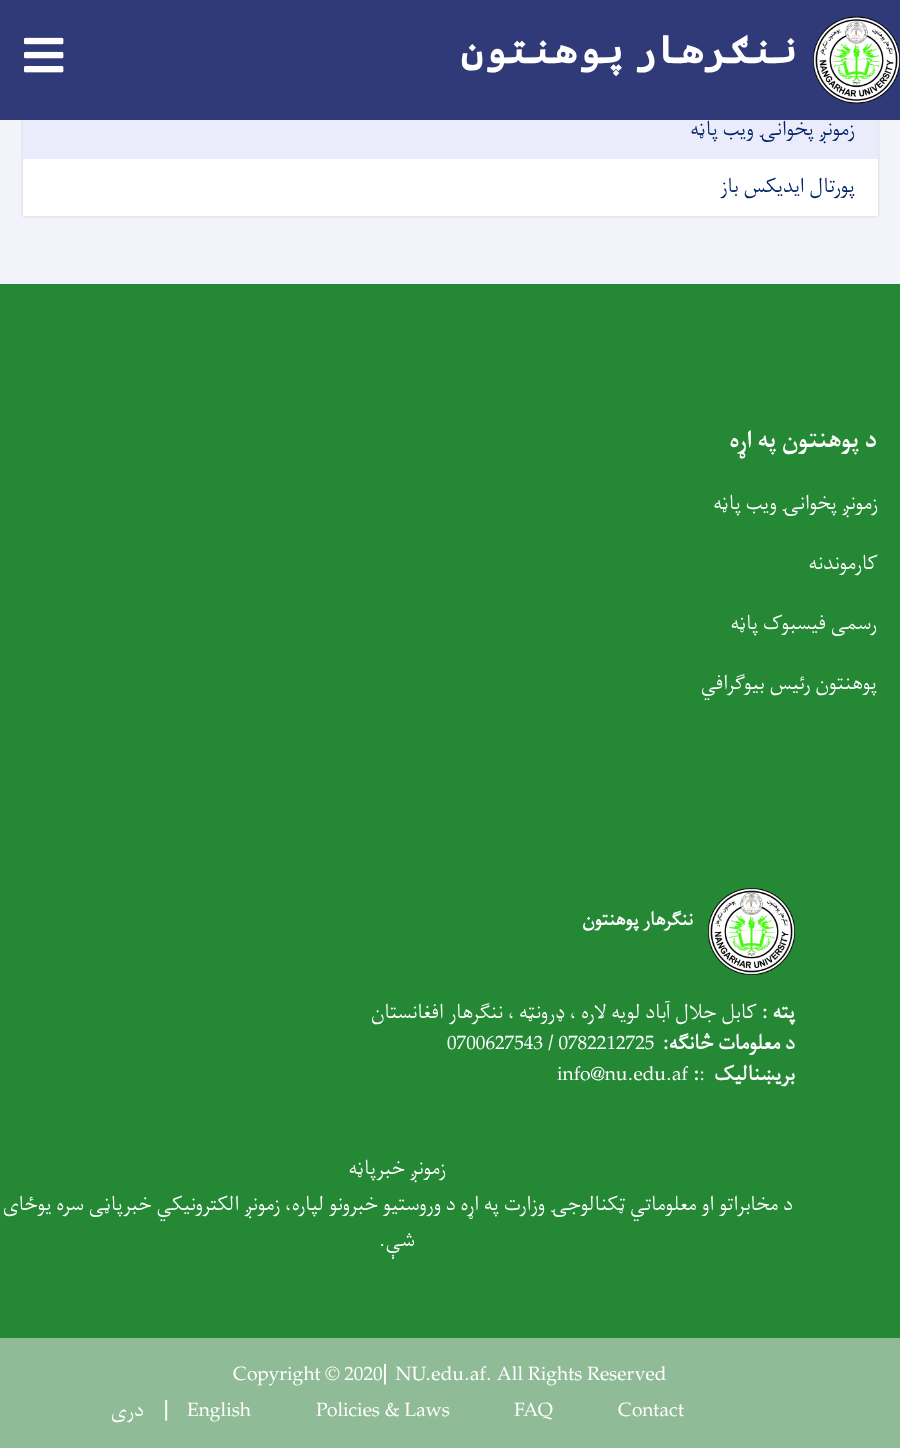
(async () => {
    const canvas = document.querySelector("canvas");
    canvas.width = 900;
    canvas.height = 1448;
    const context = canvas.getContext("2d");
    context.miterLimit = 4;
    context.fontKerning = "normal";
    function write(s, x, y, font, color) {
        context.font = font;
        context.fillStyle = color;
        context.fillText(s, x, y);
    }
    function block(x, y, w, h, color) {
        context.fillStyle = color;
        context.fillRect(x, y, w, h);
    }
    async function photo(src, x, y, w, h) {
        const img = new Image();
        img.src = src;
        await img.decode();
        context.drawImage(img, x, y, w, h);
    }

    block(0, 0, 900, 1448, "rgb(242, 243, 251)");
    context.fillStyle = "rgba(185, 185, 185, 0.6)";
    context.filter = "blur(1.5px)";
    context.beginPath();
    context.rect(23, -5, 855, 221);
    context.fill();
    context.filter = "none";
    block(0, 0, 900, 120, "rgb(48, 58, 121)");
    await photo("media/1.png", 813, 16, 87, 88);
    context.wordSpacing = "-14px";
    context.direction = "rtl";
    write("ننګرهار پوهنتون", 798, 63, "bold 40px Cascadia Code", "rgb(255, 255, 255)");
    await photo("media/2.png", 24, 37, 40, 36);
    block(23, 120, 855, 39, "rgb(234, 236, 251)");
    context.wordSpacing = "0px";
    write("زمونږ پخوانۍ ویب پاڼه", 855, 135, "24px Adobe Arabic", "rgb(0, 35, 102)");
    block(23, 159, 855, 57, "rgb(255, 255, 255)");
    write("پورتال ایدیکس باز", 855, 192, "24px Adobe Arabic", "rgb(0, 35, 102)");
    block(0, 284, 900, 1054, "rgb(36, 136, 53)");
    write("د پوهنتون په اړه", 877, 447, "bold 27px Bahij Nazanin", "rgb(255, 255, 255)");
    write("زمونږ پخوانۍ ویب پاڼه", 878, 509, "24px Adobe Arabic", "rgb(255, 255, 255)");
    write("کارموندنه", 878, 569, "24px Adobe Arabic", "rgb(255, 255, 255)");
    write("رسمی فیسبوک پاڼه", 877, 629, "24px Adobe Arabic", "rgb(255, 255, 255)");
    write("پوهنتون رئیس بیوګرافي", 877, 689, "24px Adobe Arabic", "rgb(255, 255, 255)");
    await photo("media/3.png", 708, 888, 87, 87);
    write("ننګرهار پوهنتون", 693, 925, "bold 22px Adobe Arabic", "rgb(255, 255, 255)");
    write("پته :", 795, 1018, "bold 24px Adobe Arabic", "rgb(255, 255, 255)");
    write("کابل جلال آباد لویه لاره ، ډرونټه ، ننګرهار افغانستان", 757, 1018, "24px Adobe Arabic", "rgb(255, 255, 255)");
    write("د معلومات څانګه:", 795, 1049, "bold 24px Adobe Arabic", "rgb(255, 255, 255)");
    context.direction = "ltr";
    write("0700627543 / 0782212725", 447, 1049, "24px Adobe Arabic", "rgb(255, 255, 255)");
    context.direction = "rtl";
    write("بریښنالیک", 795, 1080, "bold 24px Adobe Arabic", "rgb(255, 255, 255)");
    context.direction = "ltr";
    write(":", 699, 1080, "24px Adobe Arabic", "rgb(255, 255, 255)");
    write(":", 693, 1080, "bold 24px Adobe Arabic", "rgb(255, 255, 255)");
    write("info@nu.edu.af", 557, 1080, "24px Adobe Arabic", "rgb(255, 255, 255)");
    context.direction = "rtl";
    write("زمونږ خبرپاڼه", 446, 1174, "24px Adobe Arabic", "rgb(255, 255, 255)");
    write("د مخابراتو او معلوماتي ټکنالوجۍ وزارت په اړه د وروستیو خبرونو لپاره، زمونږ الکترونیکي خبرپاڼی سره یوځای", 793, 1210, "24px Adobe Arabic", "rgb(255, 255, 255)");
    write("شې.", 415, 1246, "24px Adobe Arabic", "rgb(255, 255, 255)");
    block(0, 1338, 900, 110, "rgb(143, 187, 151)");
    context.direction = "ltr";
    write("Copyright © 2020| NU.edu.af. All Rights Reserved", 233, 1380, "24px Adobe Arabic", "rgb(255, 255, 255)");
    write("Contact", 618, 1416, "24px Adobe Arabic", "rgb(255, 255, 255)");
    write("FAQ", 514, 1416, "24px Adobe Arabic", "rgb(255, 255, 255)");
    write("Policies & Laws", 316, 1416, "24px Adobe Arabic", "rgb(255, 255, 255)");
    write("English", 187, 1416, "24px Adobe Arabic", "rgb(255, 255, 255)");
    write("|", 164, 1416, "24px Adobe Arabic", "rgb(255, 255, 255)");
    context.direction = "rtl";
    write("دری", 144, 1416, "24px Adobe Arabic", "rgb(255, 255, 255)");
})();
